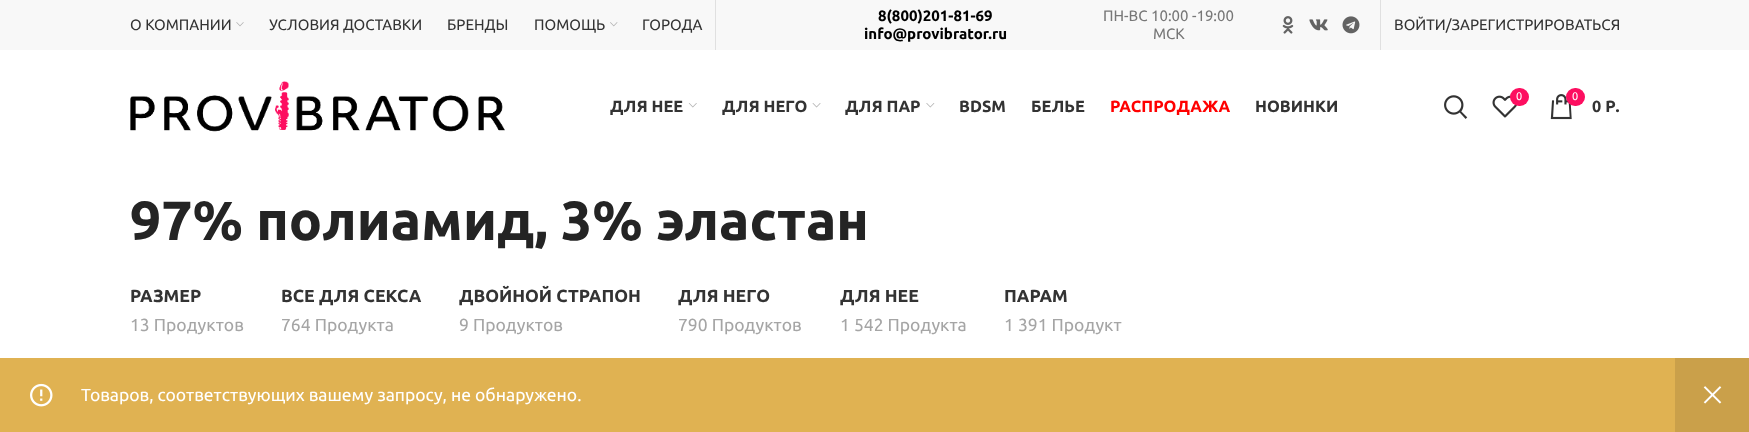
(async () => {
    const canvas = document.querySelector("canvas");
    canvas.width = 1749;
    canvas.height = 432;
    const context = canvas.getContext("2d");
    context.miterLimit = 4;
    context.fontKerning = "normal";
    function write(s, x, y, font, color) {
        context.font = font;
        context.fillStyle = color;
        context.fillText(s, x, y);
    }
    function block(x, y, w, h, color) {
        context.fillStyle = color;
        context.fillRect(x, y, w, h);
    }
    function card(x, y, w, h, r, color) {
        context.fillStyle = color;
        context.beginPath();
        context.roundRect(x, y, w, h, r);
        context.fill();
    }
    async function photo(src, x, y, w, h) {
        const img = new Image();
        img.src = src;
        await img.decode();
        context.drawImage(img, x, y, w, h);
    }

    block(0, 0, 1749, 432, "rgb(255, 255, 255)");
    block(0, 0, 1749, 50, "rgb(248, 248, 248)");
    write("О КОМПАНИИ", 130, 30, "15px Ubuntu", "rgb(51, 51, 51)");
    await photo("media/1.png", 236, 22, 8, 5);
    write("УСЛОВИЯ ДОСТАВКИ", 269, 30, "15px Ubuntu", "rgb(51, 51, 51)");
    write("БРЕНДЫ", 447, 30, "15px Ubuntu", "rgb(51, 51, 51)");
    write("ПОМОЩЬ", 534, 30, "15px Ubuntu", "rgb(51, 51, 51)");
    await photo("media/2.png", 610, 22, 8, 5);
    write("ГОРОДА", 642, 30, "15px Ubuntu", "rgb(51, 51, 51)");
    block(715, 0, 1, 50, "rgb(224, 224, 224)");
    write("8(800)201-81-69", 878, 21, "bold 15px Ubuntu", "rgb(0, 0, 0)");
    write("info@provibrator.ru", 864, 39, "bold 15px Ubuntu", "rgb(0, 0, 0)");
    write("ПН-ВС 10:00 -19:00", 1103, 21, "15px Ubuntu", "rgb(119, 119, 119)");
    write("МСК", 1153, 39, "15px Ubuntu", "rgb(119, 119, 119)");
    await photo("media/3.png", 1282, 16, 12, 18);
    await photo("media/4.png", 1309, 19, 19, 12);
    await photo("media/5.png", 1342, 16, 18, 18);
    block(1380, 0, 1, 50, "rgb(224, 224, 224)");
    write("ВОЙТИ/ЗАРЕГИСТРИРОВАТЬСЯ", 1394, 30, "15px Ubuntu", "rgb(51, 51, 51)");
    await photo("media/6.png", 130, 81, 375, 51);
    write("ДЛЯ НЕЕ", 610, 112, "bold 16.25px Ubuntu", "rgb(51, 51, 51)");
    await photo("media/7.png", 688, 103, 9, 5);
    write("ДЛЯ НЕГО", 722, 112, "bold 16.25px Ubuntu", "rgb(51, 51, 51)");
    await photo("media/8.png", 812, 103, 9, 5);
    write("ДЛЯ ПАР", 845, 112, "bold 16.25px Ubuntu", "rgb(51, 51, 51)");
    await photo("media/9.png", 926, 103, 9, 5);
    write("BDSM", 959, 112, "bold 16.25px Ubuntu", "rgb(51, 51, 51)");
    write("БЕЛЬЕ", 1031, 112, "bold 16.25px Ubuntu", "rgb(51, 51, 51)");
    write("РАСПРОДАЖА", 1110, 112, "bold 16.25px Ubuntu", "rgb(255, 0, 0)");
    write("НОВИНКИ", 1255, 112, "bold 16.25px Ubuntu", "rgb(51, 51, 51)");
    await photo("media/10.png", 1444, 95, 24, 24);
    await photo("media/11.png", 1492, 95, 25, 23);
    card(1510, 88, 19, 18, 9, "rgb(253, 14, 96)");
    write("0", 1516, 100, "11px Ubuntu", "rgb(255, 255, 255)");
    await photo("media/12.png", 1550, 94, 22, 26);
    card(1566, 88, 19, 18, 9, "rgb(253, 14, 96)");
    write("0", 1572, 100, "11px Ubuntu", "rgb(255, 255, 255)");
    write("0 Р.", 1592, 112, "bold 16.25px Ubuntu", "rgb(51, 51, 51)");
    write("97% полиамид, 3% эластан", 130, 240, "bold 55px Ubuntu", "rgb(36, 36, 36)");
    write("РАЗМЕР", 130, 302, "bold 17.5px Ubuntu", "rgb(51, 51, 51)");
    write("13 Продуктов", 130, 331, "17.5px Ubuntu", "rgb(165, 165, 165)");
    write("ВСЕ ДЛЯ СЕКСА", 281, 302, "bold 17.5px Ubuntu", "rgb(51, 51, 51)");
    write("764 Продукта", 281, 331, "17.5px Ubuntu", "rgb(165, 165, 165)");
    write("ДВОЙНОЙ СТРАПОН", 459, 302, "bold 17.5px Ubuntu", "rgb(51, 51, 51)");
    write("9 Продуктов", 459, 331, "17.5px Ubuntu", "rgb(165, 165, 165)");
    write("ДЛЯ НЕГО", 678, 302, "bold 17.5px Ubuntu", "rgb(51, 51, 51)");
    write("790 Продуктов", 678, 331, "17.5px Ubuntu", "rgb(165, 165, 165)");
    write("ДЛЯ НЕЕ", 840, 302, "bold 17.5px Ubuntu", "rgb(51, 51, 51)");
    write("1 542 Продукта", 840, 331, "17.5px Ubuntu", "rgb(165, 165, 165)");
    write("ПАРАМ", 1004, 302, "bold 17.5px Ubuntu", "rgb(51, 51, 51)");
    write("1 391 Продукт", 1004, 331, "17.5px Ubuntu", "rgb(165, 165, 165)");
    block(0, 358, 1675, 74, "rgb(224, 178, 82)");
    await photo("media/13.png", 30, 383, 23, 24);
    write("Товаров, соответствующих вашему запросу, не обнаружено.", 81, 401, "17.5px Ubuntu", "rgb(255, 255, 255)");
    block(1675, 358, 74, 74, "rgb(202, 160, 74)");
    await photo("media/14.png", 1703, 386, 19, 18);
})();
